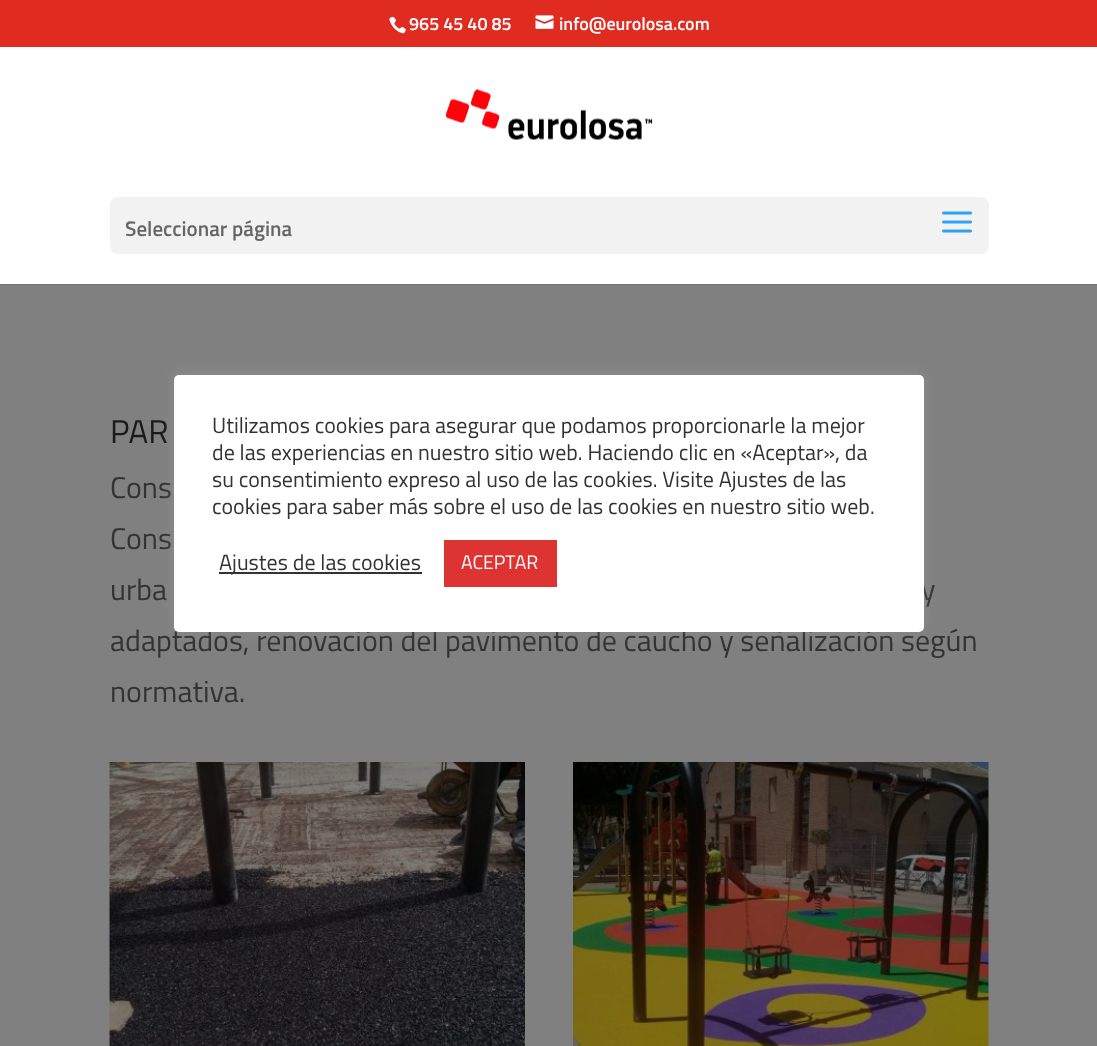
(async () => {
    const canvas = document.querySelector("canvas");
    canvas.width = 1097;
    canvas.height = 1046;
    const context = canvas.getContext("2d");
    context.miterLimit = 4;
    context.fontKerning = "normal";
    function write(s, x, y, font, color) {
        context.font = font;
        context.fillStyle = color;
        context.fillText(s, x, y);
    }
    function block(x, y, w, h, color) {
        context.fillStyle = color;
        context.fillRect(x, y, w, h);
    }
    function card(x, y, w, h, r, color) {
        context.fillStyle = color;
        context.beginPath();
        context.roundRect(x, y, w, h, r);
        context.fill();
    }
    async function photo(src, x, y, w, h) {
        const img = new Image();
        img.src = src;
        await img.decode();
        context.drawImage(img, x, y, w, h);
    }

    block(0, 0, 1097, 1046, "rgb(128, 128, 128)");
    block(0, 0, 1097, 47, "rgb(224, 43, 32)");
    await photo("media/1.png", 389, 16, 17, 18);
    write("965 45 40 85", 409, 30, "600 18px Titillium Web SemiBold", "rgb(255, 255, 255)");
    await photo("media/2.png", 535, 15, 19, 14);
    write("info@eurolosa.com", 559, 30, "600 18px Titillium Web SemiBold", "rgb(255, 255, 255)");
    block(0, 284, 1097, 1, "rgb(115, 115, 115)");
    block(0, 47, 1097, 237, "rgb(255, 255, 255)");
    await photo("media/3.png", 446, 89, 207, 51);
    card(110, 197, 879, 57, 8, "rgb(242, 242, 242)");
    write("Seleccionar página", 125, 236, "600 21px Titillium Web SemiBold", "rgb(102, 102, 102)");
    await photo("media/4.png", 942, 211, 30, 22);
    write("PAR", 110, 443, "33px Titillium Web", "rgb(26, 26, 26)");
    write("Cons", 110, 498, "30px Titillium Web", "rgb(51, 51, 51)");
    write("Cons", 110, 549, "30px Titillium Web", "rgb(51, 51, 51)");
    write("urba", 110, 600, "30px Titillium Web", "rgb(51, 51, 51)");
    write("y", 921, 600, "30px Titillium Web", "rgb(51, 51, 51)");
    write("adaptados, renovación del pavimento de caucho y señalización según", 110, 651, "30px Titillium Web", "rgb(51, 51, 51)");
    write("normativa.", 110, 702, "30px Titillium Web", "rgb(51, 51, 51)");
    await photo("media/5.png", 109, 762, 416, 284);
    await photo("media/6.png", 573, 762, 416, 284);
    context.fillStyle = "rgba(172, 171, 171, 0.3)";
    context.filter = "blur(7.5px)";
    context.beginPath();
    context.roundRect(174, 374, 750, 256, 5);
    context.fill();
    context.filter = "none";
    card(174, 375, 750, 257, 5, "rgb(255, 255, 255)");
    write("Utilizamos cookies para asegurar que podamos proporcionarle la mejor", 212, 433, "22px Titillium Web", "rgb(51, 51, 51)");
    write("de las experiencias en nuestro sitio web. Haciendo clic en «Aceptar», da", 212, 460, "22px Titillium Web", "rgb(51, 51, 51)");
    write("su consentimiento expreso al uso de las cookies. Visite Ajustes de las", 212, 487, "22px Titillium Web", "rgb(51, 51, 51)");
    write("cookies para saber más sobre el uso de las cookies en nuestro sitio web.", 212, 514, "22px Titillium Web", "rgb(51, 51, 51)");
    block(219, 572, 203, 2, "rgb(51, 51, 51)");
    write("Ajustes de las cookies", 219, 570, "22px Titillium Web", "rgb(51, 51, 51)");
    block(444, 540, 113, 47, "rgb(221, 51, 51)");
    write("ACEPTAR", 461, 569, "19.5px Titillium Web", "rgb(255, 255, 255)");
})();
